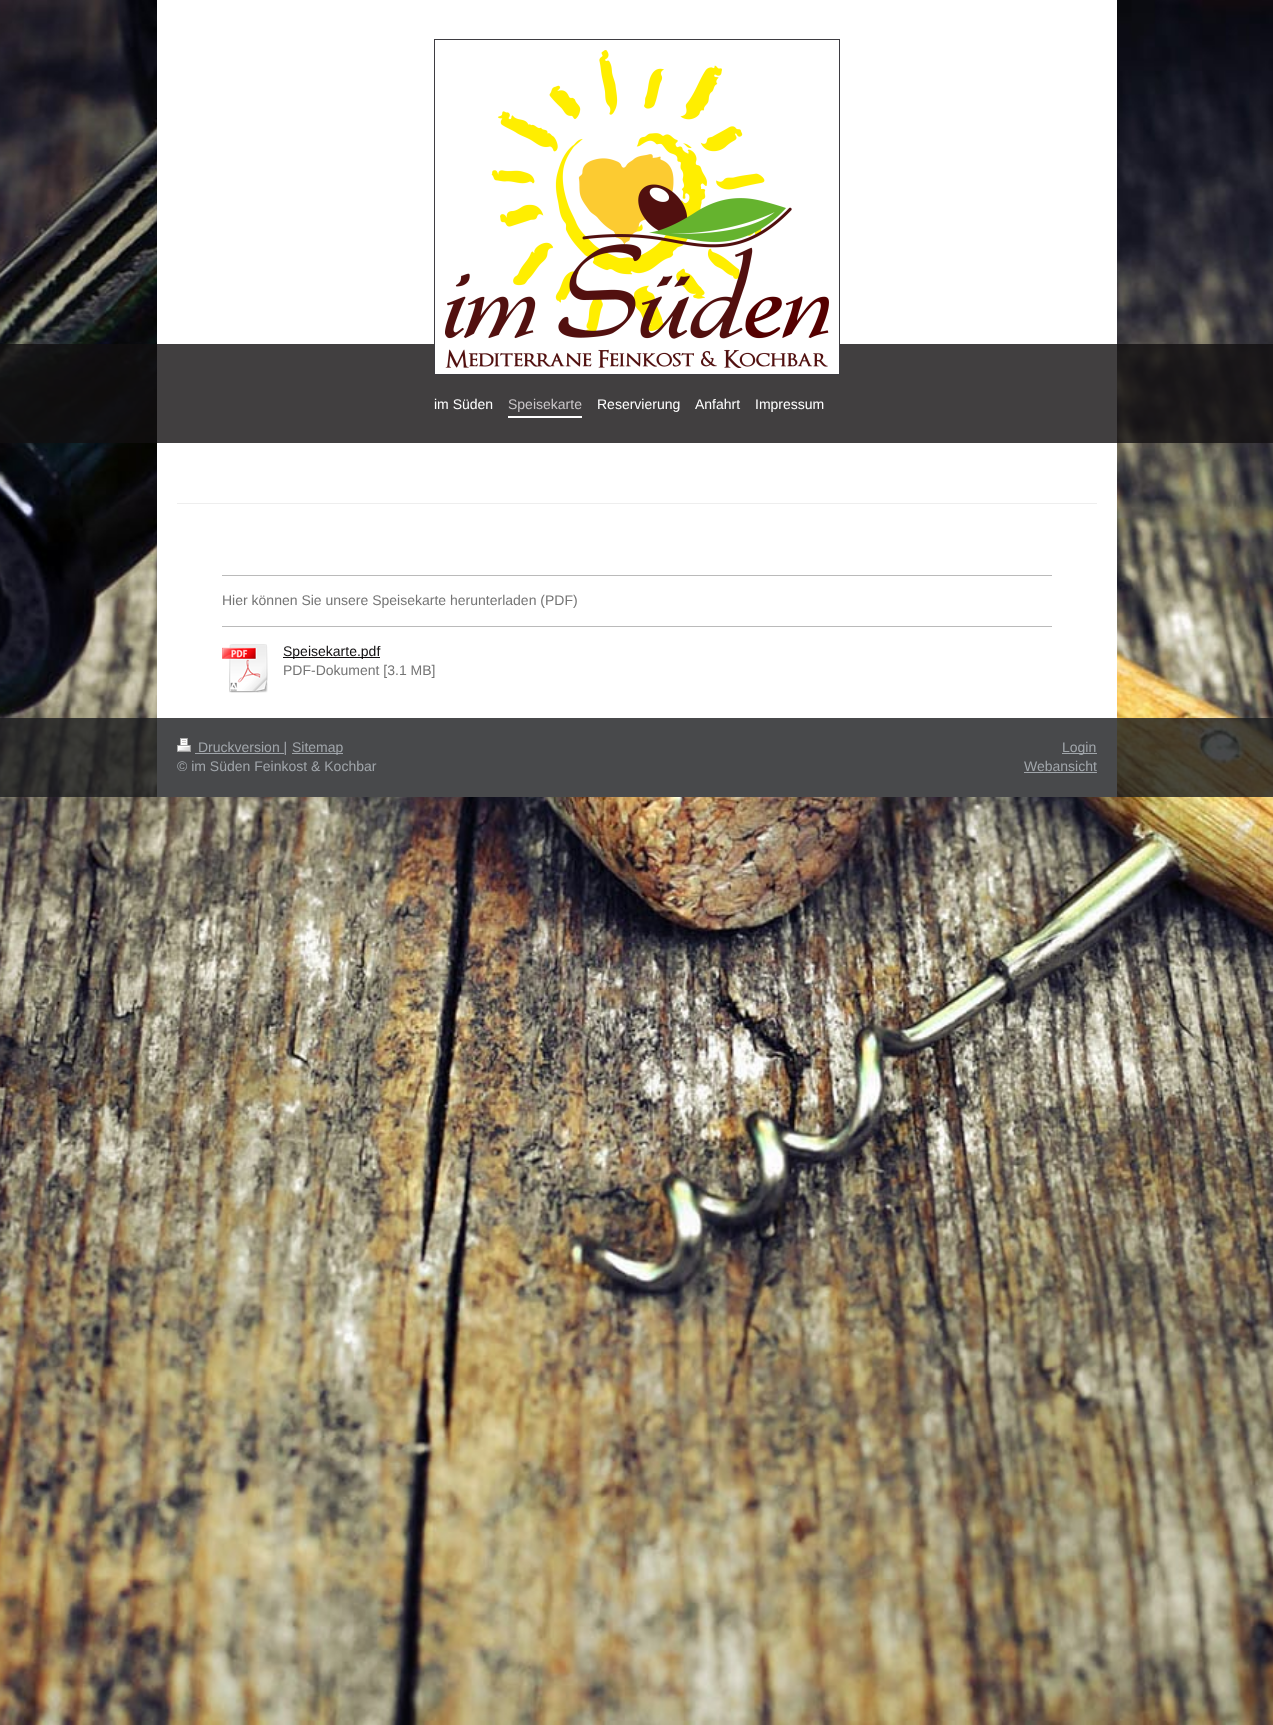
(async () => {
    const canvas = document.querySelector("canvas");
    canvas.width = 1273;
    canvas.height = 1725;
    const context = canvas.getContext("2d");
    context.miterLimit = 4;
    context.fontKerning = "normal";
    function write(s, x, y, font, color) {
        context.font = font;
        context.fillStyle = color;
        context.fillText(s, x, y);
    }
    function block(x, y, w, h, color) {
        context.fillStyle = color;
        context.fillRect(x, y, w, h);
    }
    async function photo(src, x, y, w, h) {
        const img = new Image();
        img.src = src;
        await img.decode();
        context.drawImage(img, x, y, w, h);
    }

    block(0, 0, 1273, 1725, "rgb(255, 255, 255)");
    await photo("media/1.png", 0, 0, 1273, 1725);
    block(157, 0, 960, 797, "rgb(255, 255, 255)");
    block(0, 344, 1273, 99, "rgba(17, 15, 16, 0.8)");
    context.strokeStyle = "rgb(62, 61, 66)";
    context.strokeRect(434.5, 39.5, 405, 335);
    block(435, 344, 404, 30, "rgb(255, 255, 255)");
    await photo("media/2.png", 445, 50, 384, 318);
    write("im Süden", 434, 409, "14px Liberation Sans", "rgb(255, 255, 255)");
    block(508, 416, 74, 2, "rgb(255, 255, 255)");
    write("Speisekarte", 508, 409, "14px Liberation Sans", "rgb(202, 198, 200)");
    write("Reservierung", 597, 409, "14px Liberation Sans", "rgb(255, 255, 255)");
    write("Anfahrt", 695, 409, "14px Liberation Sans", "rgb(255, 255, 255)");
    write("Impressum", 755, 409, "14px Liberation Sans", "rgb(255, 255, 255)");
    block(177, 503, 920, 1, "rgb(238, 238, 238)");
    block(222, 575, 830, 1, "rgb(186, 186, 186)");
    write("Hier können Sie unsere Speisekarte herunterladen (PDF)", 222, 605, "14px Liberation Sans", "rgb(117, 117, 117)");
    block(222, 626, 830, 1, "rgb(186, 186, 186)");
    await photo("media/3.png", 222, 644, 46, 49);
    block(283, 657, 97, 1, "rgb(17, 15, 16)");
    write("Speisekarte.pdf", 283, 656, "14px Liberation Sans", "rgb(17, 15, 16)");
    write("PDF-Dokument [3.1 MB]", 283, 675, "14px Liberation Sans", "rgb(117, 117, 117)");
    block(0, 718, 1273, 79, "rgba(26, 28, 30, 0.8)");
    await photo("media/4.png", 177, 738, 14, 14);
    block(195, 753, 89, 1, "rgb(161, 166, 171)");
    write("Druckversion |", 198, 752, "14px Liberation Sans", "rgb(161, 166, 171)");
    block(292, 753, 51, 1, "rgb(161, 166, 171)");
    write("Sitemap", 292, 752, "14px Liberation Sans", "rgb(161, 166, 171)");
    context.save();
    context.beginPath();
    context.rect(177, 738, 920, 39);
    context.clip();
    write("© im Süden Feinkost & Kochbar", 177, 771, "14px Liberation Sans", "rgb(161, 166, 171)");
    context.restore();
    block(1062, 753, 35, 1, "rgb(161, 166, 171)");
    write("Login", 1062, 752, "14px Liberation Sans", "rgb(161, 166, 171)");
    write("Webansicht", 1024, 771, "14px Liberation Sans", "rgb(161, 166, 171)");
    block(1024, 772, 73, 1, "rgb(161, 166, 171)");
})();
